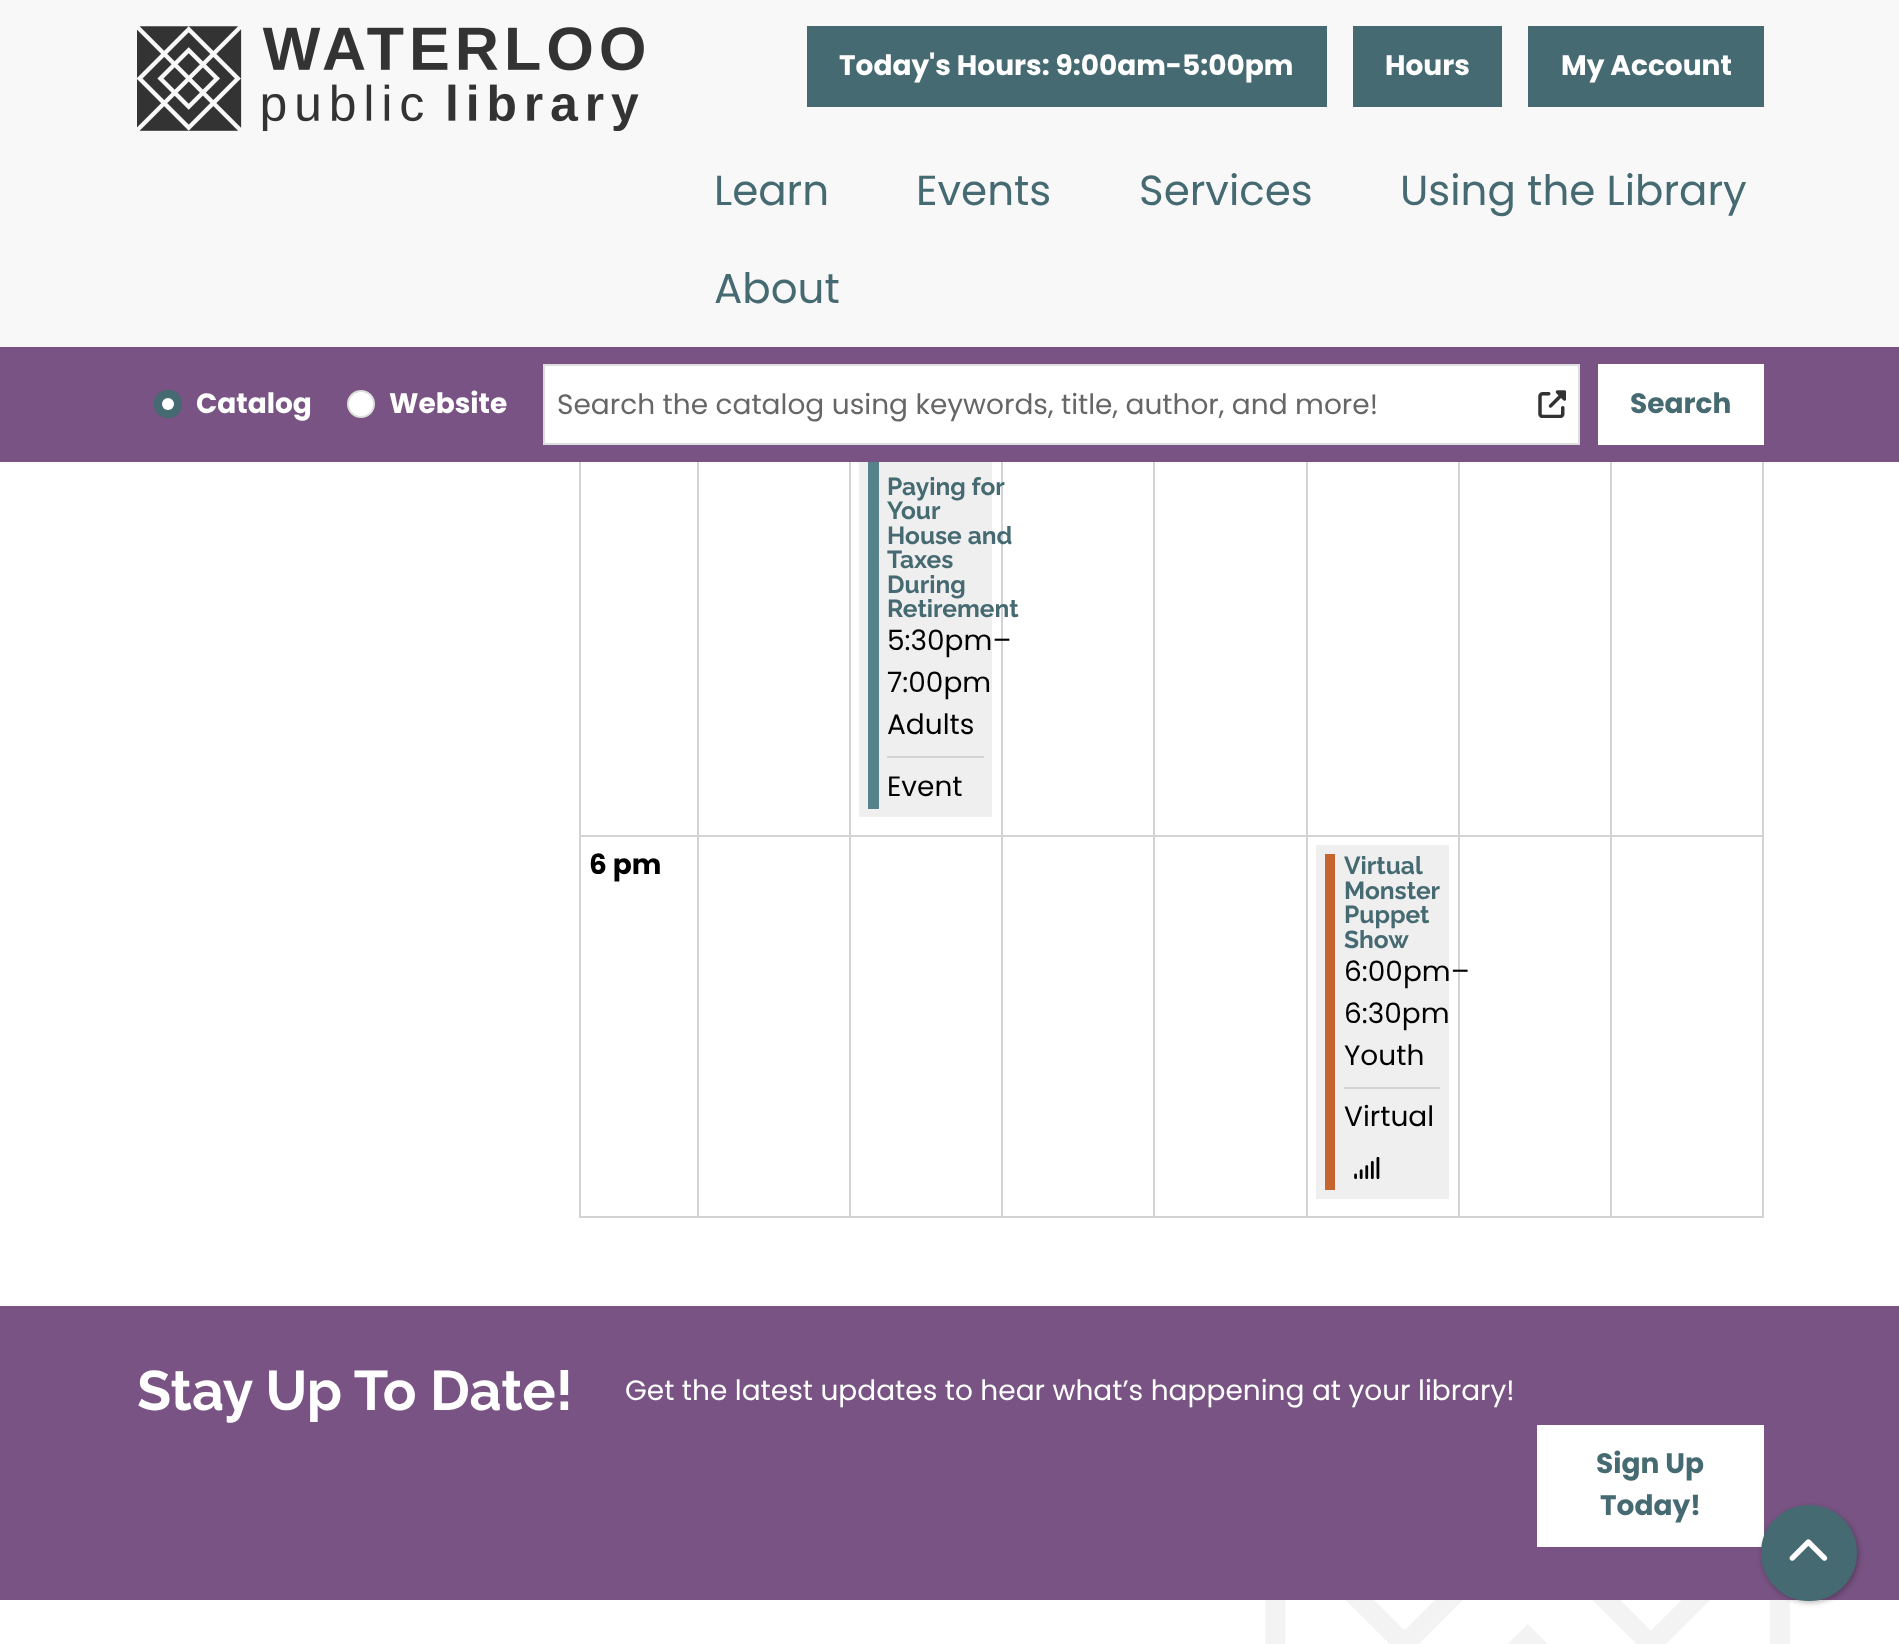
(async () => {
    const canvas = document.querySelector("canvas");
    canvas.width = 1899;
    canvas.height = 1644;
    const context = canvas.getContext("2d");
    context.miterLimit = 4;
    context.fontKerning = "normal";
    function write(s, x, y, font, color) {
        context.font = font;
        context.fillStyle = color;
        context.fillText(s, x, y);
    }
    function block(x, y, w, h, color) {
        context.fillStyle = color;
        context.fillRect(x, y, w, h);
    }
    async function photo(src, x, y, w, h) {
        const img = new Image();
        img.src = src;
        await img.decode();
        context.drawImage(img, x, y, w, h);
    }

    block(0, 0, 1899, 1644, "rgb(255, 255, 255)");
    block(0, 0, 1899, 347, "rgb(248, 248, 248)");
    await photo("media/1.png", 137, 26, 507, 105);
    block(807, 26, 520, 81, "rgb(70, 106, 113)");
    write("Today's Hours: 9:00am-5:00pm", 839, 75, "bold 28px Poppins", "rgb(255, 255, 255)");
    block(1353, 26, 149, 81, "rgb(70, 106, 113)");
    write("Hours", 1385, 75, "bold 28px Poppins", "rgb(255, 255, 255)");
    block(1528, 26, 236, 81, "rgb(70, 106, 113)");
    write("My Account", 1561, 75, "bold 28px Poppins", "rgb(255, 255, 255)");
    write("Learn", 714, 205, "42px Poppins", "rgb(70, 106, 113)");
    write("Events", 916, 205, "42px Poppins", "rgb(70, 106, 113)");
    write("Services", 1139, 205, "42px Poppins", "rgb(70, 106, 113)");
    write("Using the Library", 1400, 205, "42px Poppins", "rgb(70, 106, 113)");
    write("About", 714, 303, "42px Poppins", "rgb(70, 106, 113)");
    block(0, 347, 1899, 115, "rgb(120, 83, 131)");
    context.fillStyle = "rgb(70, 106, 113)";
    context.beginPath();
    context.arc(168, 404, 14, 0, Math.PI * 2);
    context.fill();
    context.fillStyle = "rgb(255, 255, 255)";
    context.beginPath();
    context.arc(168, 404, 6, 0, Math.PI * 2);
    context.fill();
    context.beginPath();
    context.arc(168, 404, 13, 0, Math.PI * 2);
    context.strokeStyle = "rgb(70, 106, 113)";
    context.lineWidth = 2;
    context.stroke();
    write("Catalog", 196, 413, "bold 28px Poppins", "rgb(255, 255, 255)");
    context.beginPath();
    context.arc(361, 404, 13, 0, Math.PI * 2);
    context.fill();
    context.strokeStyle = "rgb(221, 221, 221)";
    context.stroke();
    write("Website", 389, 413, "bold 28px Poppins", "rgb(255, 255, 255)");
    context.beginPath();
    context.rect(544, 365, 1035, 79);
    context.fill();
    context.stroke();
    write("Search the catalog using keywords, title, author, and more!", 557, 414, "28px Poppins", "rgb(102, 102, 102)");
    await photo("media/2.png", 1538, 390, 28, 28);
    block(1598, 364, 166, 81, "rgb(255, 255, 255)");
    write("Search", 1630, 413, "bold 28px Poppins", "rgb(70, 106, 113)");
    block(1610, 835, 154, 2, "rgb(210, 211, 213)");
    block(1762, 462, 2, 756, "rgb(210, 211, 213)");
    block(1610, 1216, 154, 2, "rgb(210, 211, 213)");
    block(1610, 835, 2, 383, "rgb(210, 211, 213)");
    block(1458, 835, 154, 2, "rgb(210, 211, 213)");
    block(1458, 1216, 154, 2, "rgb(210, 211, 213)");
    block(1458, 835, 2, 383, "rgb(210, 211, 213)");
    block(1306, 835, 154, 2, "rgb(210, 211, 213)");
    block(1306, 1216, 154, 2, "rgb(210, 211, 213)");
    block(1306, 835, 2, 383, "rgb(210, 211, 213)");
    block(1153, 835, 154, 2, "rgb(210, 211, 213)");
    block(1153, 1216, 154, 2, "rgb(210, 211, 213)");
    block(1153, 835, 2, 383, "rgb(210, 211, 213)");
    block(1001, 835, 154, 2, "rgb(210, 211, 213)");
    block(1001, 1216, 154, 2, "rgb(210, 211, 213)");
    block(1001, 835, 2, 383, "rgb(210, 211, 213)");
    block(849, 835, 154, 2, "rgb(210, 211, 213)");
    block(849, 1216, 154, 2, "rgb(210, 211, 213)");
    block(849, 835, 2, 383, "rgb(210, 211, 213)");
    block(697, 835, 154, 2, "rgb(210, 211, 213)");
    block(697, 1216, 154, 2, "rgb(210, 211, 213)");
    block(697, 835, 2, 383, "rgb(210, 211, 213)");
    block(579, 835, 119, 2, "rgb(210, 211, 213)");
    block(697, 462, 2, 375, "rgb(210, 211, 213)");
    block(1001, 462, 2, 375, "rgb(210, 211, 213)");
    block(1153, 462, 2, 375, "rgb(210, 211, 213)");
    block(1306, 462, 2, 375, "rgb(210, 211, 213)");
    block(1458, 462, 2, 375, "rgb(210, 211, 213)");
    block(1610, 462, 2, 375, "rgb(210, 211, 213)");
    block(849, 462, 2, 375, "rgb(210, 211, 213)");
    block(859, 462, 133, 355, "rgb(239, 239, 239)");
    block(868, 462, 11, 347, "rgb(85, 130, 139)");
    write("Paying for", 887, 495, "bold 24.5px Raleway", "rgb(70, 106, 113)");
    write("Your", 887, 519, "bold 24.5px Raleway", "rgb(70, 106, 113)");
    write("House and", 887, 544, "bold 24.5px Raleway", "rgb(70, 106, 113)");
    write("Taxes", 887, 568, "bold 24.5px Raleway", "rgb(70, 106, 113)");
    write("During", 887, 593, "bold 24.5px Raleway", "rgb(70, 106, 113)");
    write("Retirement", 887, 617, "bold 24.5px Raleway", "rgb(70, 106, 113)");
    write("5:30pm–", 887, 650, "28px Poppins", "rgb(0, 0, 0)");
    write("7:00pm", 887, 692, "28px Poppins", "rgb(0, 0, 0)");
    write("Adults", 887, 734, "28px Poppins", "rgb(0, 0, 0)");
    block(887, 756, 97, 2, "rgb(210, 211, 213)");
    write("Event", 887, 796, "28px Poppins", "rgb(0, 0, 0)");
    block(579, 1216, 119, 2, "rgb(210, 211, 213)");
    block(579, 462, 2, 756, "rgb(210, 211, 213)");
    write("6 pm", 589, 874, "bold 28px Poppins", "rgb(0, 0, 0)");
    block(1316, 845, 133, 354, "rgb(239, 239, 239)");
    block(1325, 854, 10, 336, "rgb(198, 100, 48)");
    write("Virtual", 1344, 874, "bold 24.5px Raleway", "rgb(70, 106, 113)");
    write("Monster", 1344, 899, "bold 24.5px Raleway", "rgb(70, 106, 113)");
    write("Puppet", 1344, 923, "bold 24.5px Raleway", "rgb(70, 106, 113)");
    write("Show", 1344, 948, "bold 24.5px Raleway", "rgb(70, 106, 113)");
    write("6:00pm–", 1344, 981, "28px Poppins", "rgb(0, 0, 0)");
    write("6:30pm", 1344, 1023, "28px Poppins", "rgb(0, 0, 0)");
    write("Youth", 1344, 1065, "28px Poppins", "rgb(0, 0, 0)");
    block(1344, 1087, 96, 2, "rgb(210, 211, 213)");
    write("Virtual", 1344, 1126, "28px Poppins", "rgb(0, 0, 0)");
    await photo("media/3.png", 1354, 1157, 26, 23);
    block(0, 1306, 1899, 294, "rgb(120, 83, 131)");
    write("Stay Up To Date!", 137, 1410, "bold 55.75px Raleway", "rgb(255, 255, 255)");
    write("Get the latest updates to hear what’s happening at your library!", 625, 1400, "28px Poppins", "rgb(255, 255, 255)");
    block(1537, 1425, 227, 122, "rgb(255, 255, 255)");
    write("Sign Up", 1596, 1473, "bold 28px Poppins", "rgb(70, 106, 113)");
    write("Today!", 1600, 1515, "bold 28px Poppins", "rgb(70, 106, 113)");
    await photo("media/4.png", 1265, 1600, 525, 44);
    context.fillStyle = "rgba(0, 0, 0, 0.25)";
    context.filter = "blur(2.5px)";
    context.beginPath();
    context.roundRect(1762, 1507, 97, 96, 48);
    context.fill();
    context.filter = "none";
    context.fillStyle = "rgb(70, 106, 113)";
    context.beginPath();
    context.arc(1809, 1553, 47, 0, Math.PI * 2);
    context.fill();
    context.strokeStyle = "rgb(70, 106, 113)";
    context.stroke();
    await photo("media/5.png", 1789, 1539, 39, 22);
})();
